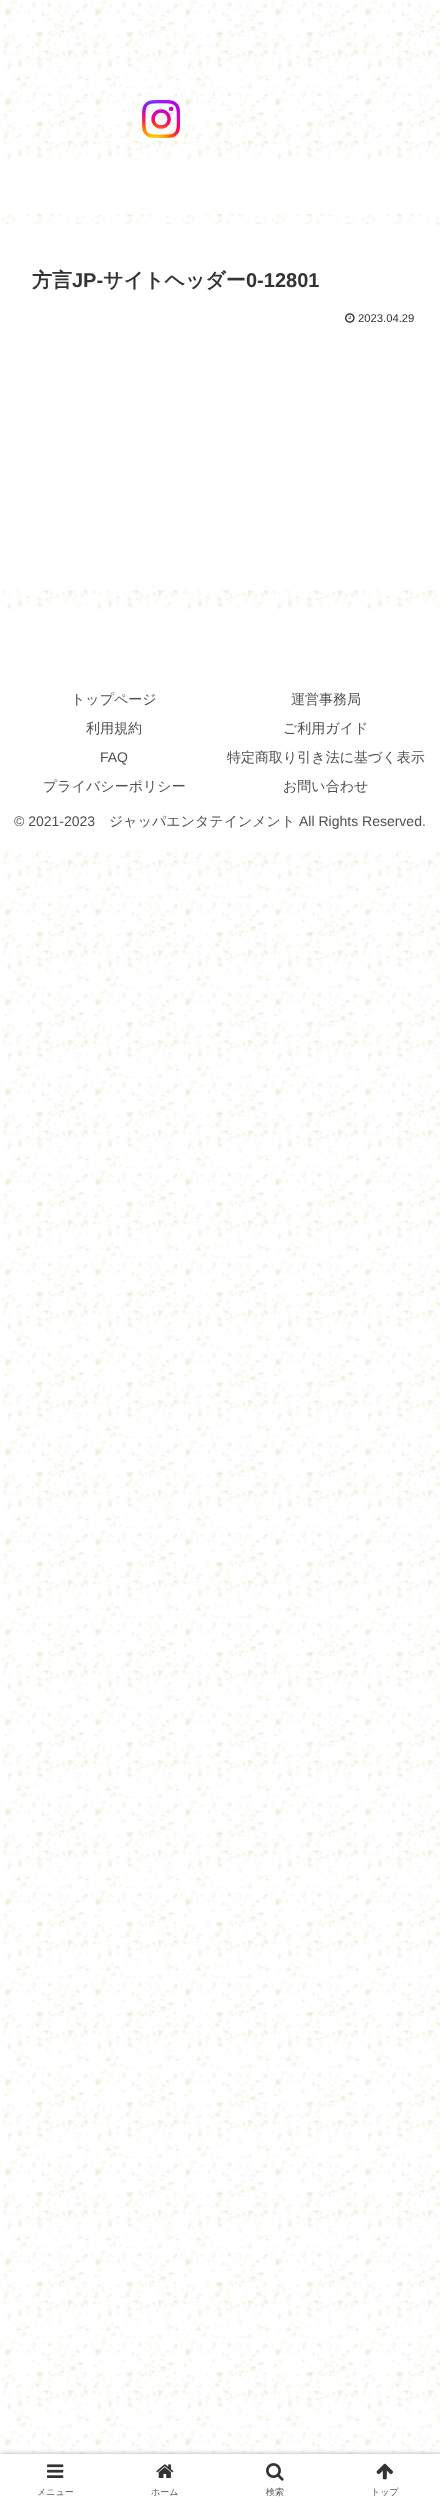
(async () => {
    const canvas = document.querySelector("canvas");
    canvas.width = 440;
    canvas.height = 2504;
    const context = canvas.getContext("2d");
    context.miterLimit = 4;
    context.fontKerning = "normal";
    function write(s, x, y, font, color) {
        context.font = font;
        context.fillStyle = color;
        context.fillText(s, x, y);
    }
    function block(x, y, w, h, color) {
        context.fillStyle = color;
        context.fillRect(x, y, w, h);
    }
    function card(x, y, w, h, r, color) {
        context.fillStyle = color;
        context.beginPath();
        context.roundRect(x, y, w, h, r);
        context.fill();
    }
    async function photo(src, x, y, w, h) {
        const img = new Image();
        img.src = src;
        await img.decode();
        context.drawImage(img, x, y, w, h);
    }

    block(0, 0, 440, 2504, "rgb(255, 255, 255)");
    await photo("media/1.png", 0, 0, 440, 2454);
    block(55, 28, 115, 1, "rgba(255, 255, 255, 0.5)");
    block(433, 119, 7, 1, "rgba(255, 255, 255, 0.5)");
    block(433, 140, 7, 1, "rgba(255, 255, 255, 0.5)");
    block(433, 119, 1, 22, "rgba(255, 255, 255, 0.5)");
    block(433, 119, 7, 1, "rgba(255, 255, 255, 0.5)");
    block(433, 96, 1, 24, "rgba(255, 255, 255, 0.5)");
    block(0, 96, 434, 1, "rgba(255, 255, 255, 0.5)");
    block(215, 42, 1, 55, "rgba(255, 255, 255, 0.5)");
    block(215, 43, 1, 54, "rgba(255, 255, 255, 0.5)");
    block(33, 96, 183, 1, "rgba(255, 255, 255, 0.5)");
    block(433, 28, 7, 1, "rgba(255, 255, 255, 0.5)");
    block(433, 61, 1, 3, "rgba(255, 255, 255, 0.5)");
    block(433, 28, 1, 34, "rgba(255, 255, 255, 0.5)");
    block(235, 28, 199, 1, "rgba(255, 255, 255, 0.5)");
    block(433, 28, 1, 24, "rgba(255, 255, 255, 0.5)");
    block(228, 96, 193, 1, "rgba(255, 255, 255, 0.5)");
    block(433, 96, 1, 23, "rgba(255, 255, 255, 0.5)");
    block(0, 140, 434, 1, "rgba(255, 255, 255, 0.5)");
    await photo("media/2.png", 142, 100, 38, 38);
    block(0, 161, 440, 53, "rgb(255, 255, 255)");
    card(0, 224, 440, 365, 4, "rgb(255, 255, 255)");
    write("方言", 32, 287, "bold 20px WenQuanYi Zen Hei", "rgb(51, 51, 51)");
    write("JP-", 72, 287, "bold 20px Liberation Sans", "rgb(51, 51, 51)");
    write("サイトヘッダー", 103, 287, "bold 20px WenQuanYi Zen Hei", "rgb(51, 51, 51)");
    write("0-12801", 246, 287, "bold 20px Liberation Sans", "rgb(51, 51, 51)");
    await photo("media/3.png", 345, 313, 10, 10);
    write("2023.04.29", 358, 322, "11.25px Liberation Sans", "rgb(51, 51, 51)");
    block(0, 609, 440, 242, "rgb(255, 255, 255)");
    write("トップページ", 71, 704, "500 14px WenQuanYi Zen Hei", "rgb(79, 79, 79)");
    write("運営事務局", 291, 704, "500 14px WenQuanYi Zen Hei", "rgb(79, 79, 79)");
    write("利用規約", 86, 733, "500 14px WenQuanYi Zen Hei", "rgb(79, 79, 79)");
    write("ご利用ガイド", 283, 733, "500 14px WenQuanYi Zen Hei", "rgb(79, 79, 79)");
    write("FAQ", 100, 762, "14px Liberation Sans", "rgb(79, 79, 79)");
    write("特定商取り引き法に基づく表示", 227, 762, "500 14px WenQuanYi Zen Hei", "rgb(79, 79, 79)");
    write("プライバシーポリシー", 43, 791, "500 14px WenQuanYi Zen Hei", "rgb(79, 79, 79)");
    write("お問い合わせ", 283, 791, "500 14px WenQuanYi Zen Hei", "rgb(79, 79, 79)");
    write("© 2021-2023", 14, 826, "14px Liberation Sans", "rgb(79, 79, 79)");
    write("ジャッパエンタテインメント", 109, 826, "500 14px WenQuanYi Zen Hei", "rgb(79, 79, 79)");
    write("All Rights Reserved.", 299, 826, "14px Liberation Sans", "rgb(79, 79, 79)");
    context.fillStyle = "rgb(169, 169, 169)";
    context.filter = "blur(2.5px)";
    context.beginPath();
    context.rect(0, 2454, 440, 50);
    context.fill();
    context.filter = "none";
    block(0, 2454, 440, 50, "rgb(255, 255, 255)");
    await photo("media/4.png", 47, 2464, 17, 14);
    write("メニュー", 37, 2495, "500 9px WenQuanYi Zen Hei", "rgb(92, 92, 92)");
    await photo("media/5.png", 156, 2464, 18, 14);
    write("ホーム", 151, 2495, "500 9px WenQuanYi Zen Hei", "rgb(92, 92, 92)");
    await photo("media/6.png", 266, 2463, 18, 18);
    write("検索", 266, 2495, "500 9px WenQuanYi Zen Hei", "rgb(92, 92, 92)");
    await photo("media/7.png", 376, 2463, 17, 17);
    write("トップ", 371, 2495, "500 9px WenQuanYi Zen Hei", "rgb(92, 92, 92)");
})();
